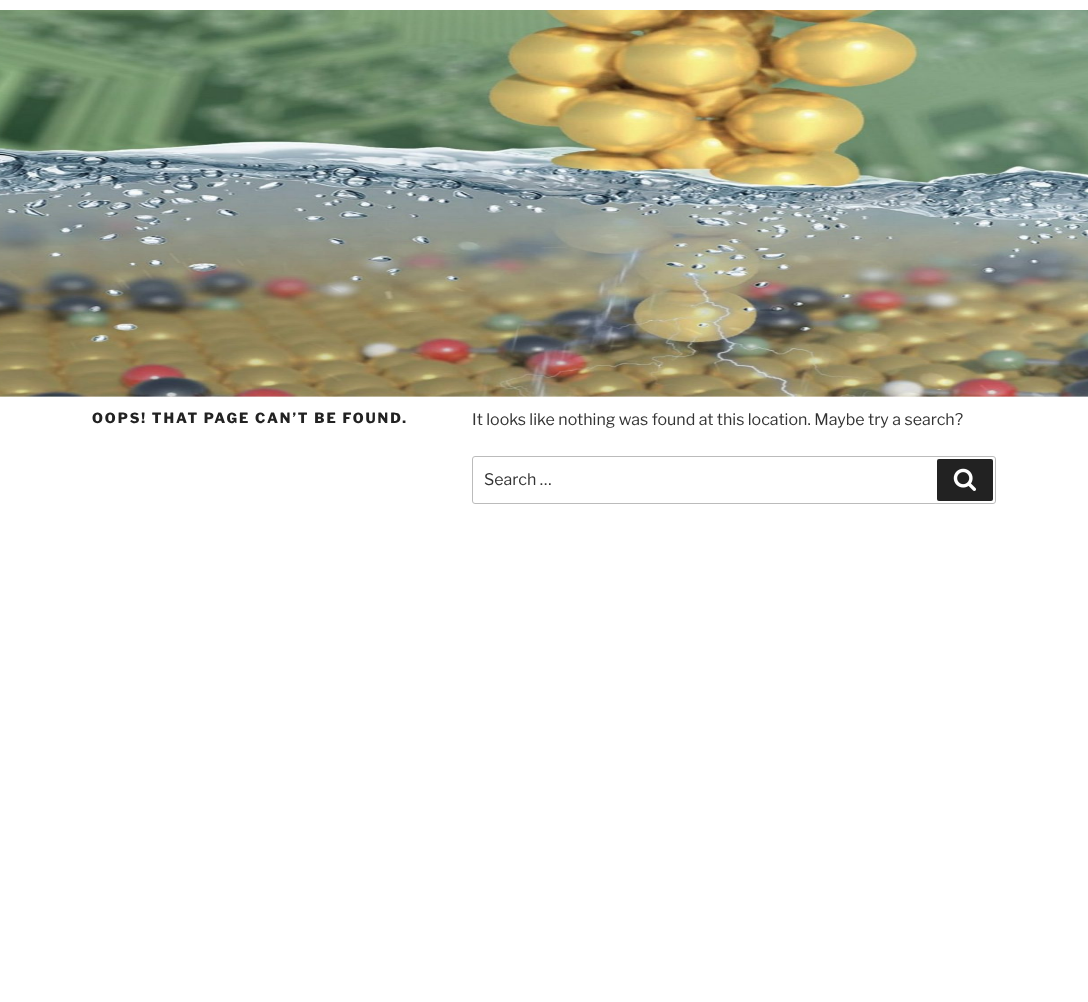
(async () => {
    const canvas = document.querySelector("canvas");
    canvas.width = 1088;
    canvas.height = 1002;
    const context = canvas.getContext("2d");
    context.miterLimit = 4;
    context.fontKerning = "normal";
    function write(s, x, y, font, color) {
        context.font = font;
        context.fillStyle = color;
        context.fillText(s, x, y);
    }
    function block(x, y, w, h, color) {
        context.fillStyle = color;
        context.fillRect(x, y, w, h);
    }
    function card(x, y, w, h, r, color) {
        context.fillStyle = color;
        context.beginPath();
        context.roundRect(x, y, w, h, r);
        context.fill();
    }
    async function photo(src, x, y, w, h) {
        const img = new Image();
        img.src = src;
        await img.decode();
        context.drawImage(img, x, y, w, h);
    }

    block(0, 0, 1088, 1002, "rgb(255, 255, 255)");
    await photo("media/1.png", 0, 10, 1088, 387);
    context.letterSpacing = "1.95px";
    write("OOPS! THAT PAGE CAN’T BE FOUND.", 92, 423, "100 14px Libre Franklin", "rgb(34, 34, 34)");
    context.letterSpacing = "0px";
    write("It looks like nothing was found at this location. Maybe try a search?", 472, 425, "100 16px 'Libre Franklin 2'", "rgb(51, 51, 51)");
    context.beginPath();
    context.roundRect(472.5, 456.5, 523, 47, 2.5);
    context.strokeStyle = "rgb(187, 187, 187)";
    context.stroke();
    write("Search …", 484, 485, "100 16px 'Libre Franklin 2'", "rgb(51, 51, 51)");
    card(937, 459, 56, 42, 2, "rgb(34, 34, 34)");
    await photo("media/2.png", 953, 468, 23, 23);
})();
